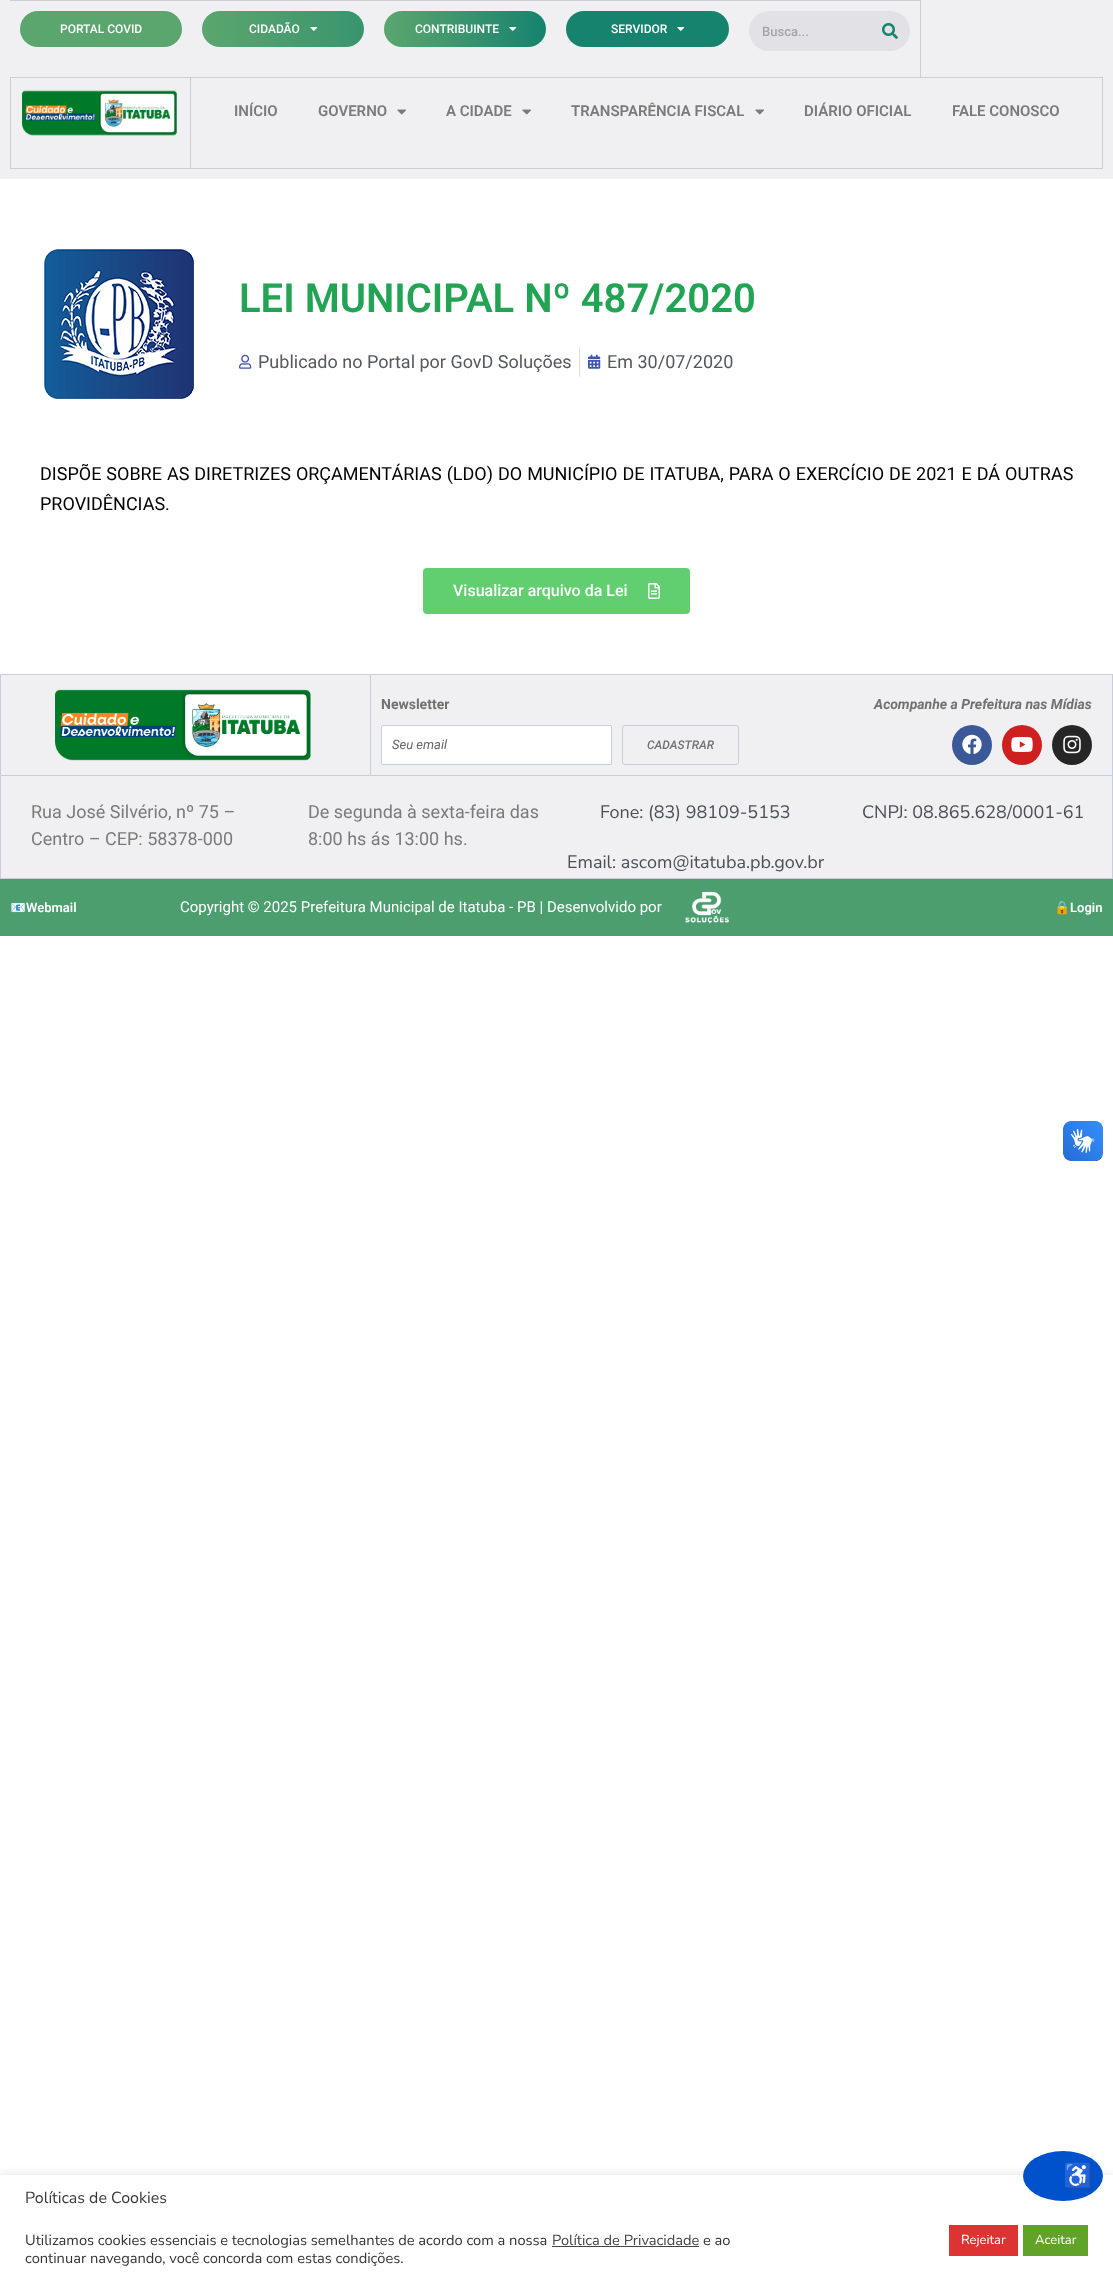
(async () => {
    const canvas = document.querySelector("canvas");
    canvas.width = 1113;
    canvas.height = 2281;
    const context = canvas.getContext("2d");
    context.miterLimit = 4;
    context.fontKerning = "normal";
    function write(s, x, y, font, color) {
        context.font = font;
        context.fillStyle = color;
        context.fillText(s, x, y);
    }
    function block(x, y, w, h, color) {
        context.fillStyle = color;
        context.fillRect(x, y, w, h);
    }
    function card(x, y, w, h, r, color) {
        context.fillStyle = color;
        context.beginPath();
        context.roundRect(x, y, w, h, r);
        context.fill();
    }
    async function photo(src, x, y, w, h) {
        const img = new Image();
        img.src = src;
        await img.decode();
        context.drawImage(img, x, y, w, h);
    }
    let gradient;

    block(0, 0, 1113, 2281, "rgb(255, 255, 255)");
    block(0, 0, 1113, 179, "rgb(240, 240, 242)");
    block(10, 0, 911, 1, "rgb(206, 205, 209)");
    card(20, 11, 162, 36, 18, "rgb(91, 166, 110)");
    write("PORTAL COVID", 60, 33, "500 12px Roboto", "rgb(255, 255, 255)");
    gradient = context.createLinearGradient(202, 29, 526, 29);
    gradient.addColorStop(0, "rgb(91, 166, 110)");
    gradient.addColorStop(1, "rgb(22, 131, 110)");
    context.fillStyle = gradient;
    context.beginPath();
    context.roundRect(202, 11, 162, 36, 18);
    context.fill();
    write("CIDADÃO", 249, 33, "500 12px Roboto", "rgb(255, 255, 255)");
    await photo("media/1.png", 310, 27, 8, 4);
    gradient = context.createLinearGradient(384, 29, 546, 29);
    gradient.addColorStop(0, "rgb(91, 166, 110)");
    gradient.addColorStop(1, "rgb(22, 131, 110)");
    context.fillStyle = gradient;
    context.beginPath();
    context.roundRect(384, 11, 162, 36, 18);
    context.fill();
    write("CONTRIBUINTE", 415, 33, "500 12px Roboto", "rgb(255, 255, 255)");
    await photo("media/2.png", 509, 27, 8, 4);
    card(566, 11, 163, 36, 18, "rgb(22, 131, 110)");
    write("SERVIDOR", 611, 33, "500 12px Roboto", "rgb(255, 255, 255)");
    await photo("media/3.png", 677, 27, 8, 4);
    block(920, 0, 1, 77, "rgb(206, 205, 209)");
    card(749, 11, 161, 40, 20, "rgb(226, 226, 230)");
    write("Busca...", 762, 36, "500 13px Roboto", "rgb(164, 164, 165)");
    await photo("media/4.png", 882, 23, 16, 16);
    block(10, 77, 180, 1, "rgb(206, 205, 209)");
    block(10, 168, 180, 1, "rgb(206, 205, 209)");
    block(10, 77, 1, 92, "rgb(206, 205, 209)");
    await photo("media/5.png", 22, 90, 155, 46);
    context.strokeStyle = "rgb(206, 205, 209)";
    context.strokeRect(190.5, 77.5, 912, 91);
    write("INÍCIO", 234, 116, "600 15px Roboto", "rgb(122, 122, 122)");
    write("GOVERNO", 318, 116, "600 15px Roboto", "rgb(122, 122, 122)");
    await photo("media/6.png", 397, 109, 9, 6);
    write("A CIDADE", 446, 116, "600 15px Roboto", "rgb(122, 122, 122)");
    await photo("media/6.png", 522, 109, 9, 6);
    write("TRANSPARÊNCIA FISCAL", 571, 116, "600 15px Roboto", "rgb(122, 122, 122)");
    await photo("media/6.png", 755, 109, 9, 6);
    write("DIÁRIO OFICIAL", 804, 116, "600 15px Roboto", "rgb(122, 122, 122)");
    write("FALE CONOSCO", 952, 116, "600 15px Roboto", "rgb(122, 122, 122)");
    await photo("media/7.png", 44, 249, 150, 150);
    write("LEI MUNICIPAL Nº 487/2020", 239, 312, "600 40px Roboto", "rgb(35, 164, 85)");
    await photo("media/8.png", 239, 354, 13, 15);
    write("Publicado no Portal por GovD Soluções", 258, 368, "18px Roboto", "rgb(84, 89, 95)");
    block(579, 347, 1, 30, "rgb(221, 221, 221)");
    await photo("media/9.png", 588, 354, 13, 15);
    write("Em 30/07/2020", 607, 368, "18px Roboto", "rgb(84, 89, 95)");
    context.wordSpacing = "0.5px";
    write("DISPÕE SOBRE AS DIRETRIZES ORÇAMENTÁRIAS (LDO) DO MUNICÍPIO DE ITATUBA, PARA O EXERCÍCIO DE 2021 E DÁ OUTRAS", 40, 480, "18px Roboto", "rgb(0, 0, 0)");
    context.wordSpacing = "0px";
    write("PROVIDÊNCIAS.", 40, 510, "18px Roboto", "rgb(0, 0, 0)");
    card(423, 568, 267, 46, 4, "rgb(97, 206, 112)");
    write("Visualizar arquivo da Lei", 453, 596, "500 16px Roboto", "rgb(255, 255, 255)");
    await photo("media/10.png", 648, 583, 12, 16);
    context.fillStyle = "rgb(240, 240, 242)";
    context.beginPath();
    context.rect(0.5, 674.5, 370, 101);
    context.fill();
    context.strokeStyle = "rgb(200, 205, 219)";
    context.stroke();
    await photo("media/11.png", 55, 689, 256, 72);
    block(371, 675, 741, 100, "rgb(240, 240, 242)");
    block(371, 674, 742, 1, "rgb(200, 205, 219)");
    block(371, 775, 371, 1, "rgb(200, 205, 219)");
    write("Newsletter", 381, 709, "bold 14px Roboto", "rgb(115, 112, 112)");
    context.fillStyle = "rgb(255, 255, 255)";
    context.beginPath();
    context.roundRect(381.5, 725.5, 230, 39, 1.5);
    context.fill();
    context.stroke();
    write("Seu email", 392, 749, "italic 13px Roboto", "rgb(102, 102, 102)");
    context.beginPath();
    context.roundRect(622.5, 725.5, 116, 39, 2.5);
    context.stroke();
    write("CADASTRAR", 647, 749, "italic 500 12px Roboto", "rgb(115, 112, 112)");
    block(1112, 674, 1, 102, "rgb(200, 205, 219)");
    block(742, 775, 371, 1, "rgb(200, 205, 219)");
    write("Acompanhe a Prefeitura nas Mídias", 874, 709, "italic bold 14px Roboto", "rgb(115, 112, 112)");
    context.fillStyle = "rgb(59, 89, 152)";
    context.beginPath();
    context.arc(972, 745, 20, 0, Math.PI * 2);
    context.fill();
    await photo("media/12.png", 962, 734, 20, 20);
    context.fillStyle = "rgb(205, 32, 31)";
    context.beginPath();
    context.arc(1022, 745, 20, 0, Math.PI * 2);
    context.fill();
    await photo("media/13.png", 1011, 737, 22, 15);
    context.fillStyle = "rgb(38, 38, 38)";
    context.beginPath();
    context.arc(1072, 745, 20, 0, Math.PI * 2);
    context.fill();
    await photo("media/14.png", 1063, 735, 18, 19);
    block(1, 776, 1111, 102, "rgb(240, 240, 242)");
    block(0, 878, 835, 1, "rgb(200, 205, 219)");
    block(0, 776, 1, 103, "rgb(200, 205, 219)");
    write("Rua José Silvério, nº 75 –", 31, 818, "18px Roboto", "rgb(122, 122, 122)");
    write("Centro – CEP: 58378-000", 31, 845, "18px Roboto", "rgb(122, 122, 122)");
    write("De segunda à sexta-feira das", 308, 818, "18px Roboto", "rgb(122, 122, 122)");
    write("8:00 hs ás 13:00 hs.", 308, 845, "18px Roboto", "rgb(122, 122, 122)");
    write("Fone: (83) 98109-5153", 600, 818, "200 18px Nunito Sans", "rgb(75, 79, 88)");
    write("Email: ascom@itatuba.pb.gov.br", 567, 868, "200 18px Nunito Sans", "rgb(75, 79, 88)");
    block(1112, 776, 1, 103, "rgb(200, 205, 219)");
    block(835, 878, 278, 1, "rgb(200, 205, 219)");
    write("CNPJ: 08.865.628/0001-61", 862, 818, "200 18px Nunito Sans", "rgb(75, 79, 88)");
    block(0, 879, 1113, 57, "rgb(76, 158, 110)");
    write("📧", 10, 912, "bold 13px Noto Color Emoji", "rgb(255, 255, 255)");
    write("Webmail", 26, 912, "600 13px Roboto", "rgb(255, 255, 255)");
    write("Copyright © 2025 Prefeitura Municipal de Itatuba - PB | Desenvolvido por", 180, 912, "15px Roboto", "rgb(255, 255, 255)");
    await photo("media/15.png", 685, 891, 44, 33);
    write("🔒", 1054, 912, "bold 13px Noto Color Emoji", "rgb(255, 255, 255)");
    write("Login", 1070, 912, "600 13px Roboto", "rgb(255, 255, 255)");
    await photo("media/16.png", 1063, 1121, 40, 40);
    await photo("media/17.png", 1063, 1121, 40, 40);
    context.save();
    context.beginPath();
    context.rect(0, 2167, 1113, 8);
    context.clip();
    context.fillStyle = "rgba(172, 171, 171, 0.3)";
    context.filter = "blur(5px)";
    context.beginPath();
    context.rect(0, 2174, 1113, 106);
    context.fill();
    context.filter = "none";
    context.restore();
    context.fillStyle = "rgb(0, 82, 204)";
    context.beginPath();
    context.ellipse(1063, 2176, 40, 25, 0, 0, Math.PI * 2);
    context.fill();
    write("♿", 1063, 2184, "24px Noto Color Emoji", "rgb(255, 255, 255)");
    write("Políticas de Cookies", 25, 2203, "200 16px Nunito Sans", "rgb(58, 58, 58)");
    write("Utilizamos cookies essenciais e tecnologias semelhantes de acordo com a nossa", 25, 2245, "200 14.65px Nunito Sans", "rgb(51, 51, 51)");
    write("Política de Privacidade", 552, 2245, "200 14.65px Nunito Sans", "rgb(68, 68, 68)");
    block(552, 2246, 147, 1, "rgb(68, 68, 68)");
    write("e ao", 703, 2245, "200 14.65px Nunito Sans", "rgb(51, 51, 51)");
    write("continuar navegando, você concorda com estas condições.", 25, 2263, "200 14.65px Nunito Sans", "rgb(51, 51, 51)");
    block(949, 2225, 69, 31, "rgb(221, 51, 51)");
    write("Rejeitar", 961, 2244, "200 13px Nunito Sans", "rgb(255, 255, 255)");
    block(1023, 2225, 65, 31, "rgb(97, 162, 41)");
    write("Aceitar", 1035, 2244, "200 13px Nunito Sans", "rgb(255, 255, 255)");
})();
